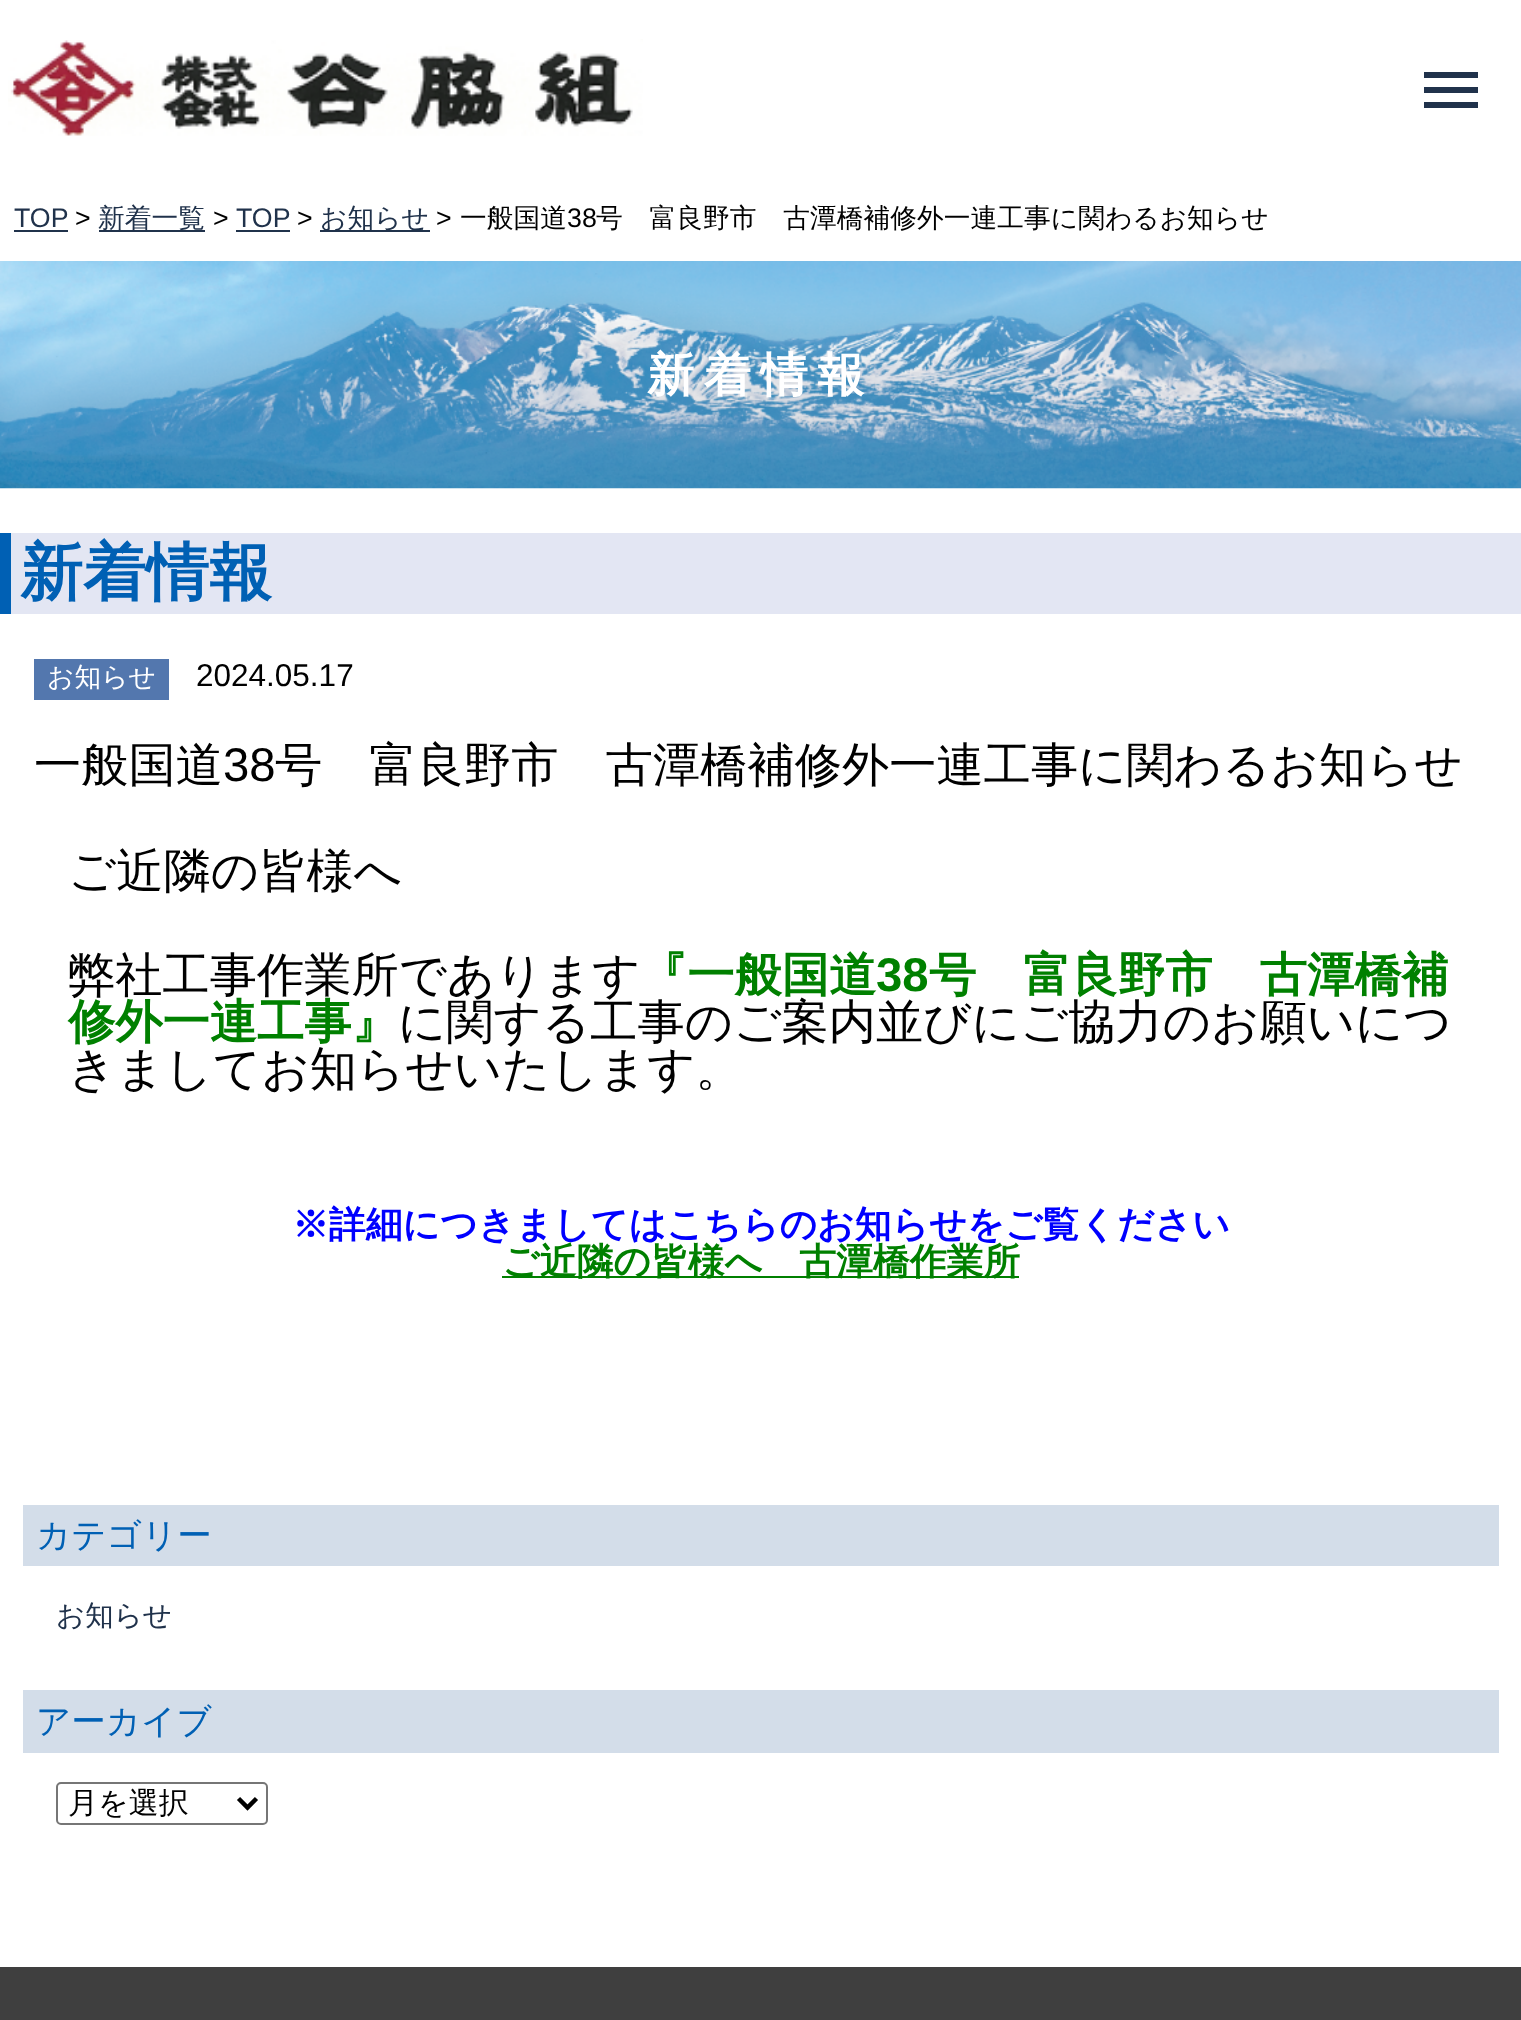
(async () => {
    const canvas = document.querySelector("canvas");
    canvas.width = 1521;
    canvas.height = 2020;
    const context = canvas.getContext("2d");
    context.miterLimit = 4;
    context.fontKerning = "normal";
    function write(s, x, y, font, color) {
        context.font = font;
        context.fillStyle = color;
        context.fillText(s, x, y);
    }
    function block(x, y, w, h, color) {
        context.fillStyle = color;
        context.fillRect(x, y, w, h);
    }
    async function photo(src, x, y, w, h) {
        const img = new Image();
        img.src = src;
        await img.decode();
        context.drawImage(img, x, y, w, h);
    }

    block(0, 0, 1521, 2020, "rgb(255, 255, 255)");
    await photo("media/1.png", 8, 39, 635, 97);
    context.fillStyle = "rgb(32, 50, 75)";
    context.beginPath();
    context.moveTo(1424, 72);
    context.lineTo(1478, 72);
    context.lineTo(1478, 78);
    context.lineTo(1424, 78);
    context.closePath();
    context.moveTo(1424, 93);
    context.lineTo(1424, 87);
    context.lineTo(1478, 87);
    context.lineTo(1478, 93);
    context.closePath();
    context.moveTo(1424, 108);
    context.lineTo(1424, 102);
    context.lineTo(1478, 102);
    context.lineTo(1478, 108);
    context.closePath();
    context.fill();
    write("TOP", 14, 227, "26.75px Liberation Sans", "rgb(32, 50, 75)");
    block(14, 230, 54, 2, "rgb(32, 50, 75)");
    write(">", 75, 227, "26.75px Liberation Sans", "rgb(0, 0, 0)");
    block(99, 230, 106, 2, "rgb(32, 50, 75)");
    write("新着一覧", 98, 227, "500 26.75px WenQuanYi Zen Hei", "rgb(32, 50, 75)");
    write(">", 213, 227, "26.75px Liberation Sans", "rgb(0, 0, 0)");
    write("TOP", 236, 227, "26.75px Liberation Sans", "rgb(32, 50, 75)");
    block(236, 230, 54, 2, "rgb(32, 50, 75)");
    write(">", 297, 227, "26.75px Liberation Sans", "rgb(0, 0, 0)");
    block(320, 230, 110, 2, "rgb(32, 50, 75)");
    write("お知らせ", 320, 227, "500 26.75px WenQuanYi Zen Hei", "rgb(32, 50, 75)");
    write(">", 436, 227, "26.75px Liberation Sans", "rgb(0, 0, 0)");
    write("一般国道", 460, 227, "500 26.75px WenQuanYi Zen Hei", "rgb(0, 0, 0)");
    write("38", 567, 227, "26.75px Liberation Sans", "rgb(0, 0, 0)");
    write("号　富良野市　古潭橋補修外一連工事に関わるお知らせ", 596, 227, "500 26.75px WenQuanYi Zen Hei", "rgb(0, 0, 0)");
    await photo("media/2.png", 0, 261, 1521, 228);
    context.letterSpacing = "9.5px";
    write("新着情報", 647, 391, "bold 47.25px WenQuanYi Zen Hei", "rgb(255, 255, 255)");
    block(11, 533, 1510, 81, "rgb(227, 230, 243)");
    block(0, 533, 11, 81, "rgb(0, 96, 180)");
    context.letterSpacing = "0px";
    write("新着情報", 20, 594, "bold 63px WenQuanYi Zen Hei", "rgb(0, 96, 180)");
    block(34, 659, 135, 41, "rgb(83, 119, 174)");
    write("お知らせ", 47, 686, "500 26.75px WenQuanYi Zen Hei", "rgb(255, 255, 255)");
    write("2024.05.17", 196, 686, "31.5px Liberation Sans", "rgb(0, 0, 0)");
    write("一般国道", 34, 781, "500 47.25px WenQuanYi Zen Hei", "rgb(0, 0, 0)");
    write("38", 223, 781, "47.25px Liberation Sans", "rgb(0, 0, 0)");
    write("号　富良野市　古潭橋補修外一連工事に関わるお知らせ", 275, 781, "500 47.25px WenQuanYi Zen Hei", "rgb(0, 0, 0)");
    write("ご近隣の皆様へ", 68, 887, "500 47.25px WenQuanYi Zen Hei", "rgb(0, 0, 0)");
    write("弊社工事作業所であります", 68, 991, "500 47.25px WenQuanYi Zen Hei", "rgb(0, 0, 0)");
    write("『一般国道", 640, 991, "bold 47.25px WenQuanYi Zen Hei", "rgb(0, 128, 0)");
    write("38", 876, 991, "bold 47.25px Liberation Sans", "rgb(0, 128, 0)");
    write("号　富良野市　古潭橋補", 929, 991, "bold 47.25px WenQuanYi Zen Hei", "rgb(0, 128, 0)");
    write("修外一連工事』", 68, 1038, "bold 47.25px WenQuanYi Zen Hei", "rgb(0, 128, 0)");
    write("に関する工事のご案内並びにご協力のお願いにつ", 398, 1038, "500 47.25px WenQuanYi Zen Hei", "rgb(0, 0, 0)");
    write("きましてお知らせいたします。", 68, 1085, "500 47.25px WenQuanYi Zen Hei", "rgb(0, 0, 0)");
    write("※詳細につきましてはこちらのお知らせをご覧ください", 292, 1237, "bold 36.85px WenQuanYi Zen Hei", "rgb(0, 0, 255)");
    block(502, 1276, 517, 2, "rgb(0, 128, 0)");
    write("ご近隣の皆様へ　古潭橋作業所", 502, 1274, "bold 36.85px WenQuanYi Zen Hei", "rgb(0, 128, 0)");
    block(23, 1505, 1476, 61, "rgb(211, 221, 233)");
    write("カテゴリー", 36, 1547, "500 34.5px WenQuanYi Zen Hei", "rgb(0, 96, 180)");
    write("お知らせ", 56, 1625, "500 28.5px WenQuanYi Zen Hei", "rgb(32, 50, 75)");
    block(23, 1690, 1476, 63, "rgb(211, 221, 233)");
    write("アーカイブ", 36, 1733, "500 34.5px WenQuanYi Zen Hei", "rgb(0, 96, 180)");
    context.beginPath();
    context.roundRect(57, 1783, 210, 41, 4);
    context.strokeStyle = "rgb(118, 118, 118)";
    context.lineWidth = 2;
    context.stroke();
    context.beginPath();
    context.moveTo(238.5, 1798.5);
    context.lineTo(247.5, 1807.5);
    context.lineTo(256.5, 1798.5);
    context.strokeStyle = "rgb(0, 0, 0)";
    context.lineWidth = 4.5;
    context.stroke();
    write("月を選択", 68, 1813, "500 30px WenQuanYi Zen Hei", "rgb(0, 0, 0)");
    block(0, 1967, 1521, 53, "rgb(63, 63, 63)");
})();
